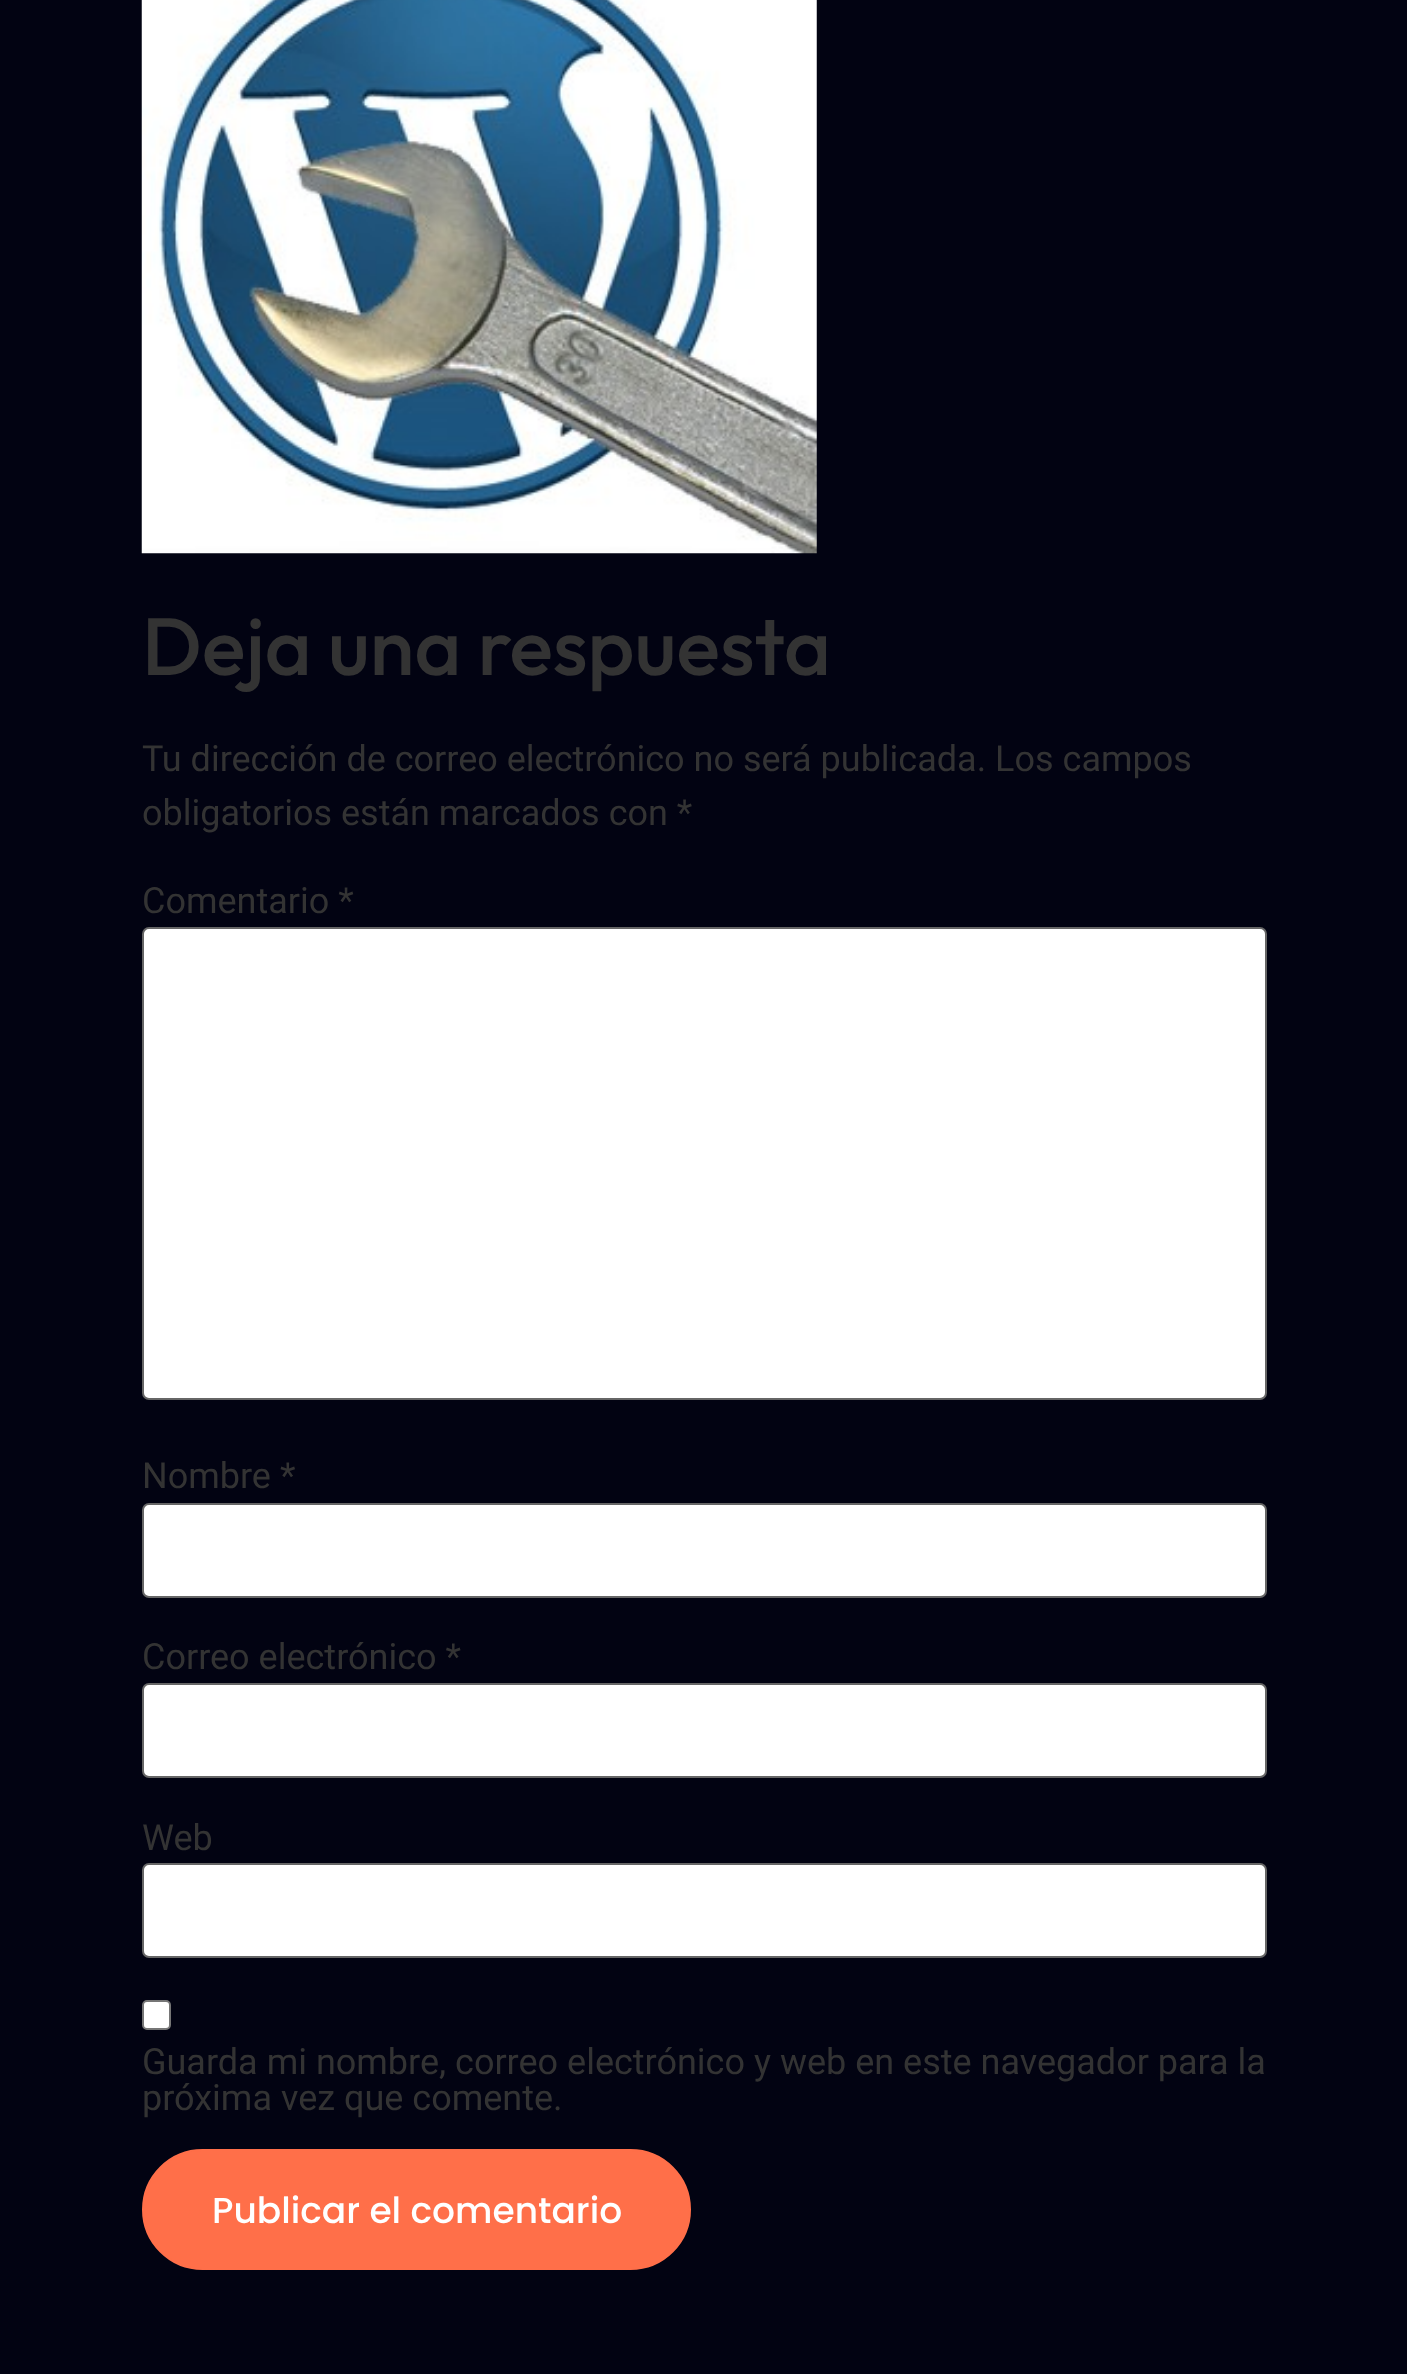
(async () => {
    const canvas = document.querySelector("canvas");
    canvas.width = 1407;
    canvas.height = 2374;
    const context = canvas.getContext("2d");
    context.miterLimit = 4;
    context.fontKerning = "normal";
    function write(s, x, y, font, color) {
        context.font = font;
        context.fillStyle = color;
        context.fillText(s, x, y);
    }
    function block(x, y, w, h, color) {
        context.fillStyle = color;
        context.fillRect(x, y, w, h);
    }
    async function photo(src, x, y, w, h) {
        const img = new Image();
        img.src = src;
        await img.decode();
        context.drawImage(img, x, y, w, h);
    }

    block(0, 0, 1407, 2374, "rgb(2, 3, 18)");
    await photo("media/1.png", 141, 0, 676, 554);
    write("Deja una respuesta", 142, 675, "500 81px Outfit", "rgb(51, 51, 51)");
    write("Tu dirección de correo electrónico no será publicada. Los campos", 142, 771, "36px Roboto", "rgb(51, 51, 51)");
    write("obligatorios están marcados con *", 142, 825, "36px Roboto", "rgb(51, 51, 51)");
    write("Comentario *", 142, 913, "36px Roboto", "rgb(51, 51, 51)");
    context.fillStyle = "rgb(255, 255, 255)";
    context.beginPath();
    context.roundRect(143, 928, 1123, 471, 6);
    context.fill();
    context.strokeStyle = "rgb(102, 102, 102)";
    context.lineWidth = 2;
    context.stroke();
    write("Nombre *", 142, 1488, "36px Roboto", "rgb(51, 51, 51)");
    context.fillStyle = "rgb(255, 255, 255)";
    context.beginPath();
    context.roundRect(143, 1504, 1123, 93, 6);
    context.fill();
    context.stroke();
    write("Correo electrónico *", 142, 1669, "36px Roboto", "rgb(51, 51, 51)");
    context.fillStyle = "rgb(255, 255, 255)";
    context.beginPath();
    context.roundRect(143, 1684, 1123, 93, 6);
    context.fill();
    context.stroke();
    write("Web", 142, 1850, "36px Roboto", "rgb(51, 51, 51)");
    context.fillStyle = "rgb(255, 255, 255)";
    context.beginPath();
    context.roundRect(143, 1864, 1123, 93, 6);
    context.fill();
    context.stroke();
    context.beginPath();
    context.roundRect(143, 2001, 27, 28, 4);
    context.fill();
    context.strokeStyle = "rgb(118, 118, 118)";
    context.stroke();
    write("Guarda mi nombre, correo electrónico y web en este navegador para la", 142, 2074, "36px Roboto", "rgb(51, 51, 51)");
    write("próxima vez que comente.", 142, 2110, "36px Roboto", "rgb(51, 51, 51)");
    context.fillStyle = "rgb(255, 111, 73)";
    context.beginPath();
    context.roundRect(143, 2150, 547, 119, 59.5);
    context.fill();
    context.strokeStyle = "rgb(255, 111, 73)";
    context.stroke();
    write("Publicar el comentario", 212, 2223, "500 36px Poppins", "rgb(255, 255, 255)");
})();
